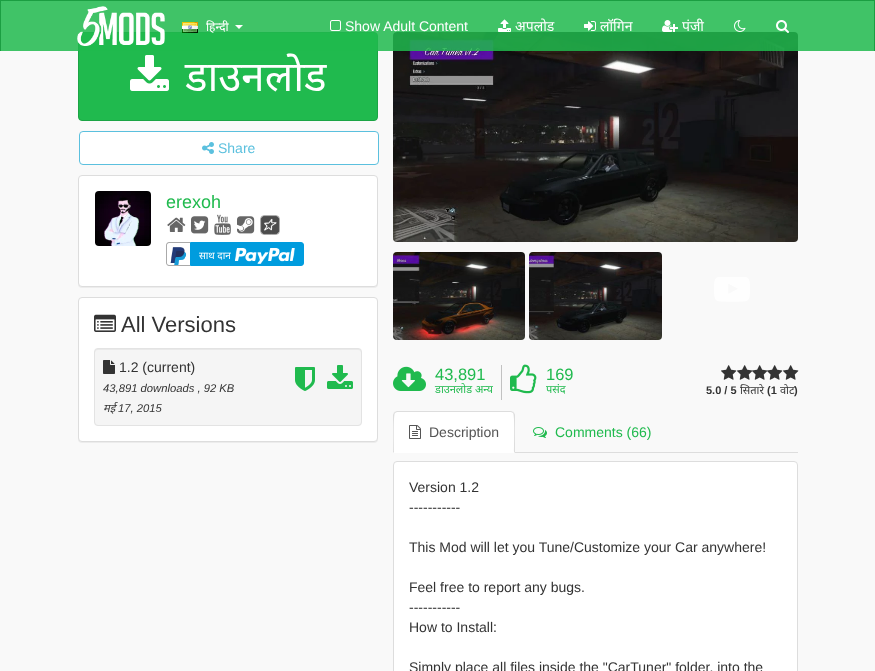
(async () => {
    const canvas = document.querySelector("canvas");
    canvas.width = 875;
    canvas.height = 671;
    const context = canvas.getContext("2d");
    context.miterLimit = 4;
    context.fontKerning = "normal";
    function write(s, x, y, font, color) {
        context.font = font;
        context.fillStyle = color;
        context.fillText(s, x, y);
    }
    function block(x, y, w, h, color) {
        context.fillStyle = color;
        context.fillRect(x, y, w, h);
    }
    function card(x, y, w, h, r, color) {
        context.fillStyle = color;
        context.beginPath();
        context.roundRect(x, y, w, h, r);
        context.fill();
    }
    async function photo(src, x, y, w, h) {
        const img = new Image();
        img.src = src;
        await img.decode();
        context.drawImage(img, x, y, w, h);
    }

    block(0, 0, 875, 671, "rgb(249, 249, 249)");
    context.fillStyle = "rgb(32, 186, 78)";
    context.beginPath();
    context.roundRect(78.5, 32.5, 299, 88, 3.5);
    context.fill();
    context.strokeStyle = "rgb(28, 164, 69)";
    context.stroke();
    await photo("media/23.png", 393, 32, 405, 210);
    block(1, 1, 873, 50, "rgba(32, 186, 78, 0.85)");
    block(0, 0, 875, 1, "rgb(27, 158, 66)");
    block(874, 0, 1, 51, "rgb(27, 158, 66)");
    block(0, 0, 1, 51, "rgb(27, 158, 66)");
    await photo("media/1.png", 77, 6, 88, 40);
    await photo("media/2.png", 182, 22, 16, 11);
    write("हिन्दी", 206, 31, "12px Noto Sans", "rgb(255, 255, 255)");
    context.beginPath();
    context.moveTo(235, 25);
    context.lineTo(243, 25);
    context.lineTo(239, 29);
    context.closePath();
    context.fill();
    await photo("media/3.png", 330, 20, 11, 11);
    write("Show Adult Content", 345, 31, "14px Liberation Sans", "rgb(255, 255, 255)");
    await photo("media/4.png", 498, 19, 13, 13);
    write("अपलोड", 515, 31, "14px Noto Sans", "rgb(255, 255, 255)");
    await photo("media/5.png", 584, 21, 12, 10);
    write("लॉगिन", 600, 31, "14px Noto Sans", "rgb(255, 255, 255)");
    await photo("media/6.png", 662, 20, 16, 12);
    write("पंजी", 682, 31, "14px Noto Sans", "rgb(255, 255, 255)");
    await photo("media/7.png", 734, 20, 12, 12);
    await photo("media/8.png", 776, 20, 13, 13);
    await photo("media/9.png", 130, 55, 39, 36);
    write("डाउनलोड", 185, 91, "42px Noto Sans", "rgb(255, 255, 255)");
    context.beginPath();
    context.roundRect(79.5, 131.5, 299, 33, 3.5);
    context.fill();
    context.strokeStyle = "rgb(91, 192, 222)";
    context.stroke();
    await photo("media/10.png", 202, 142, 12, 12);
    write("Share", 218, 153, "14px Liberation Sans", "rgb(91, 192, 222)");
    context.fillStyle = "rgba(0, 0, 0, 0.05)";
    context.filter = "blur(0.5px)";
    context.beginPath();
    context.roundRect(78, 176, 300, 112, 4);
    context.fill();
    context.filter = "none";
    context.fillStyle = "rgb(255, 255, 255)";
    context.beginPath();
    context.roundRect(78.5, 175.5, 299, 111, 3.5);
    context.fill();
    context.strokeStyle = "rgb(221, 221, 221)";
    context.stroke();
    await photo("media/11.png", 95, 191, 56, 55);
    write("erexoh", 166, 208, "18px Liberation Sans", "rgb(32, 186, 78)");
    await photo("media/12.png", 167, 217, 19, 15);
    await photo("media/13.png", 191, 216, 18, 18);
    await photo("media/14.png", 214, 214, 17, 21);
    await photo("media/15.png", 237, 216, 18, 18);
    await photo("media/16.png", 260, 215, 20, 20);
    context.fillStyle = "rgb(170, 170, 170)";
    context.beginPath();
    context.moveTo(169, 242);
    context.lineTo(190, 242);
    context.lineTo(190, 266);
    context.lineTo(169, 266);
    context.bezierCurveTo(167.5, 266, 166, 264.5, 166, 263);
    context.lineTo(166, 245);
    context.bezierCurveTo(166, 243.5, 167.5, 242, 169, 242);
    context.closePath();
    context.moveTo(169, 243);
    context.lineTo(190, 243);
    context.lineTo(190, 265);
    context.lineTo(169, 265);
    context.bezierCurveTo(168, 265, 167, 264, 167, 263);
    context.lineTo(167, 245);
    context.bezierCurveTo(167, 244, 168, 243, 169, 243);
    context.closePath();
    context.fill("evenodd");
    await photo("media/17.png", 170, 247, 17, 18);
    context.fillStyle = "rgb(0, 156, 222)";
    context.beginPath();
    context.roundRect(190.5, 242.5, 113, 23, [0, 2.5, 2.5, 0]);
    context.fill();
    context.strokeStyle = "rgb(0, 156, 222)";
    context.stroke();
    write("साथ दान", 199, 259, "10px Noto Sans", "rgb(255, 255, 255)");
    await photo("media/18.png", 235, 248, 60, 16);
    context.fillStyle = "rgba(0, 0, 0, 0.05)";
    context.filter = "blur(0.5px)";
    context.beginPath();
    context.roundRect(78, 298, 300, 145, 4);
    context.fill();
    context.filter = "none";
    context.fillStyle = "rgb(255, 255, 255)";
    context.beginPath();
    context.roundRect(78.5, 297.5, 299, 144, 3.5);
    context.fill();
    context.strokeStyle = "rgb(221, 221, 221)";
    context.stroke();
    await photo("media/19.png", 94, 314, 22, 18);
    write("All Versions", 121, 332, "22px Liberation Sans", "rgb(51, 51, 51)");
    card(94, 348, 268, 78, 4, "rgb(245, 245, 245)");
    context.fillStyle = "rgb(233, 233, 233)";
    context.beginPath();
    context.moveTo(98, 350);
    context.lineTo(358, 350);
    context.bezierCurveTo(360, 350, 361, 351, 361, 353);
    context.lineTo(361, 352);
    context.bezierCurveTo(361, 350, 360, 349, 358, 349);
    context.lineTo(98, 349);
    context.bezierCurveTo(96, 349, 95, 350, 95, 352);
    context.lineTo(95, 353);
    context.bezierCurveTo(95, 351, 96, 350, 98, 350);
    context.closePath();
    context.fill();
    context.beginPath();
    context.roundRect(94.5, 348.5, 267, 77, 3.5);
    context.strokeStyle = "rgb(227, 227, 227)";
    context.stroke();
    await photo("media/20.png", 103, 360, 12, 14);
    write("1.2 (current)", 119, 372, "14px Liberation Sans", "rgb(51, 51, 51)");
    write("43,891 downloads , 92 KB", 103, 392, "italic 11.25px Liberation Sans", "rgb(51, 51, 51)");
    write("मई", 103, 412, "italic 11.25px Noto Sans", "rgb(51, 51, 51)");
    write("17, 2015", 118, 412, "italic 11.25px Liberation Sans", "rgb(51, 51, 51)");
    await photo("media/21.png", 295, 367, 20, 24);
    await photo("media/22.png", 327, 365, 26, 24);
    await photo("media/24.png", 393, 252, 132, 88);
    await photo("media/25.png", 529, 252, 133, 88);
    await photo("media/26.png", 714, 277, 36, 25);
    await photo("media/27.png", 393, 366, 33, 25);
    block(501, 365, 1, 35, "rgb(194, 194, 194)");
    write("43,891", 435, 380, "16.5px Liberation Sans", "rgb(32, 186, 78)");
    write("डाउनलोड अन्य", 435, 393, "11px Noto Sans", "rgb(32, 186, 78)");
    await photo("media/28.png", 510, 364, 27, 30);
    write("169", 546, 380, "16.5px Liberation Sans", "rgb(32, 186, 78)");
    write("पसंद", 546, 393, "11px Noto Sans", "rgb(32, 186, 78)");
    await photo("media/29.png", 721, 365, 16, 15);
    await photo("media/29.png", 737, 365, 16, 15);
    await photo("media/30.png", 752, 365, 16, 15);
    await photo("media/30.png", 767, 365, 16, 15);
    await photo("media/29.png", 783, 365, 16, 15);
    write("5.0 / 5", 706, 394, "bold 11px Liberation Sans", "rgb(51, 51, 51)");
    write("सितारे", 740, 394, "11px Noto Sans", "rgb(51, 51, 51)");
    write("(1", 767, 394, "bold 11px Liberation Sans", "rgb(51, 51, 51)");
    write("वोट", 780, 394, "11px Noto Sans", "rgb(51, 51, 51)");
    write(")", 794, 394, "bold 11px Liberation Sans", "rgb(51, 51, 51)");
    block(515, 452, 283, 1, "rgb(221, 221, 221)");
    context.fillStyle = "rgb(255, 255, 255)";
    context.beginPath();
    context.roundRect(393, 411, 122, 42, [4, 4, 0, 0]);
    context.fill();
    context.fillStyle = "rgb(221, 221, 221)";
    context.beginPath();
    context.moveTo(397, 411);
    context.lineTo(394, 412);
    context.lineTo(395, 413);
    context.lineTo(397, 412);
    context.lineTo(511, 412);
    context.lineTo(513, 413);
    context.lineTo(514, 412);
    context.lineTo(511, 411);
    context.closePath();
    context.fill();
    context.beginPath();
    context.moveTo(515, 453);
    context.lineTo(515, 415);
    context.bezierCurveTo(515, 414, 514, 413, 514, 412);
    context.lineTo(513, 413);
    context.bezierCurveTo(515, 415, 514, 447, 514, 452);
    context.closePath();
    context.fill();
    context.beginPath();
    context.moveTo(393, 453);
    context.lineTo(394, 452);
    context.bezierCurveTo(394, 447, 393, 415, 395, 413);
    context.lineTo(394, 412);
    context.lineTo(393, 415);
    context.closePath();
    context.fill();
    await photo("media/31.png", 409, 425, 12, 14);
    write("Description", 429, 437, "14px Liberation Sans", "rgb(85, 85, 85)");
    await photo("media/32.png", 533, 427, 14, 11);
    write("Comments (66)", 555, 437, "14px Liberation Sans", "rgb(32, 186, 78)");
    context.fillStyle = "rgb(255, 255, 255)";
    context.beginPath();
    context.roundRect(393.5, 461.5, 404, 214, 3.5);
    context.fill();
    context.strokeStyle = "rgb(221, 221, 221)";
    context.stroke();
    write("Version 1.2", 409, 492, "14px Liberation Sans", "rgb(51, 51, 51)");
    write("-----------", 409, 512, "14px Liberation Sans", "rgb(51, 51, 51)");
    write("This Mod will let you Tune/Customize your Car anywhere!", 409, 552, "14px Liberation Sans", "rgb(51, 51, 51)");
    write("Feel free to report any bugs.", 409, 592, "14px Liberation Sans", "rgb(51, 51, 51)");
    write("-----------", 409, 612, "14px Liberation Sans", "rgb(51, 51, 51)");
    write("How to Install:", 409, 632, "14px Liberation Sans", "rgb(51, 51, 51)");
    write("Simply place all files inside the \"CarTuner\" folder, into the", 409, 672, "14px Liberation Sans", "rgb(51, 51, 51)");
})();
